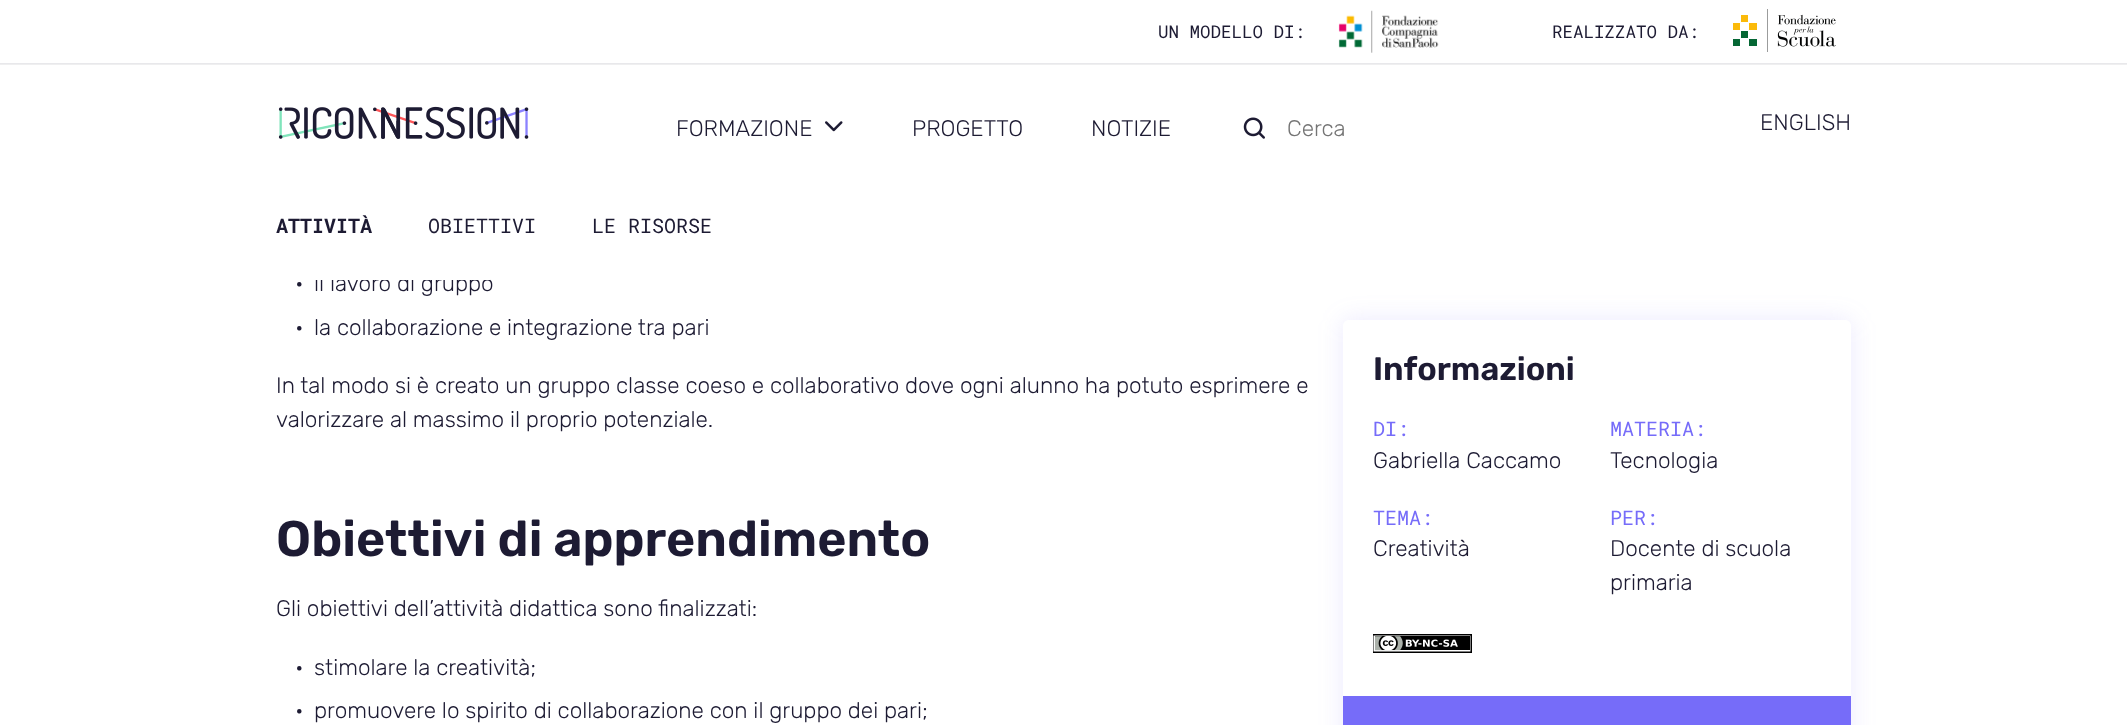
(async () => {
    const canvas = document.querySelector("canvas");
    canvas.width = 2127;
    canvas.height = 725;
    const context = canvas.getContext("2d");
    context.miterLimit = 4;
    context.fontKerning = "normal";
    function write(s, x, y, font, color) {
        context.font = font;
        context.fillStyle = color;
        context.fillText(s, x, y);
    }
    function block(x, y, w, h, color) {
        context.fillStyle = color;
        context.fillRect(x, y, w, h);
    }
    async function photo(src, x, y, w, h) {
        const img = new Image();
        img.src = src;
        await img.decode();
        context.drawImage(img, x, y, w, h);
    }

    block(0, 0, 2127, 725, "rgb(255, 255, 255)");
    write("UN MODELLO DI:", 1158, 38, "17.5px Roboto Mono", "rgb(29, 27, 51)");
    await photo("media/1.png", 1338, 10, 101, 43);
    write("REALIZZATO DA:", 1552, 38, "17.5px Roboto Mono", "rgb(29, 27, 51)");
    await photo("media/2.png", 1733, 9, 103, 43);
    block(0, 63, 2127, 1, "rgb(232, 232, 235)");
    block(0, 64, 2127, 1, "rgb(239, 239, 240)");
    await photo("media/3.png", 278, 106, 251, 33);
    write("FORMAZIONE", 676, 136, "300 22.5px Rubik", "rgb(29, 27, 51)");
    await photo("media/4.png", 825, 121, 18, 11);
    write("PROGETTO", 912, 136, "300 22.5px Rubik", "rgb(29, 27, 51)");
    write("NOTIZIE", 1091, 136, "300 22.5px Rubik", "rgb(29, 27, 51)");
    await photo("media/5.png", 1243, 117, 22, 22);
    write("Cerca", 1287, 136, "300 22.5px Rubik", "rgb(117, 117, 117)");
    write("ENGLISH", 1760, 130, "300 22.5px Rubik", "rgb(29, 27, 51)");
    write("il lavoro di gruppo", 314, 291, "300 22.5px Rubik", "rgb(29, 27, 51)");
    block(315, 275, 175, 5, "rgb(255, 255, 255)");
    write("ATTIVITÀ", 276, 233, "bold 20px Roboto Mono", "rgb(29, 27, 51)");
    write("OBIETTIVI", 428, 233, "20px Roboto Mono", "rgb(29, 27, 51)");
    write("LE RISORSE", 592, 233, "20px Roboto Mono", "rgb(29, 27, 51)");
    write("•", 295, 291, "300 22.5px Rubik", "rgb(29, 27, 51)");
    write("•", 295, 335, "300 22.5px Rubik", "rgb(29, 27, 51)");
    write("la collaborazione e integrazione tra pari", 314, 335, "300 22.5px Rubik", "rgb(29, 27, 51)");
    write("In tal modo si è creato un gruppo classe coeso e collaborativo dove ogni alunno ha potuto esprimere e", 276, 393, "300 22.5px Rubik", "rgb(29, 27, 51)");
    write("valorizzare al massimo il proprio potenziale.", 276, 427, "300 22.5px Rubik", "rgb(29, 27, 51)");
    write("Obiettivi di apprendimento", 276, 556, "600 50px Rubik", "rgb(29, 27, 51)");
    write("Gli obiettivi dell’attività didattica sono finalizzati:", 276, 616, "300 22.5px Rubik", "rgb(29, 27, 51)");
    write("•", 295, 675, "300 22.5px Rubik", "rgb(29, 27, 51)");
    write("stimolare la creatività;", 314, 675, "300 22.5px Rubik", "rgb(29, 27, 51)");
    write("•", 295, 718, "300 22.5px Rubik", "rgb(29, 27, 51)");
    write("promuovere lo spirito di collaborazione con il gruppo dei pari;", 314, 718, "300 22.5px Rubik", "rgb(29, 27, 51)");
    context.save();
    context.beginPath();
    context.moveTo(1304, 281);
    context.lineTo(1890, 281);
    context.lineTo(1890, 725);
    context.lineTo(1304, 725);
    context.closePath();
    context.moveTo(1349, 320);
    context.lineTo(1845, 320);
    context.bezierCurveTo(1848.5, 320, 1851, 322.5, 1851, 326);
    context.lineTo(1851, 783);
    context.bezierCurveTo(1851, 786.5, 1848.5, 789, 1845, 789);
    context.lineTo(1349, 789);
    context.bezierCurveTo(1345.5, 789, 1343, 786.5, 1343, 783);
    context.lineTo(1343, 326);
    context.bezierCurveTo(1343, 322.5, 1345.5, 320, 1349, 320);
    context.closePath();
    context.clip("evenodd");
    context.fillStyle = "rgba(118, 108, 249, 0.15)";
    context.filter = "blur(12.5px)";
    context.beginPath();
    context.roundRect(1343, 320, 508, 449, 6);
    context.fill();
    context.filter = "none";
    context.restore();
    write("Informazioni", 1373, 380, "600 32.5px Rubik", "rgb(29, 27, 51)");
    write("DI:", 1373, 436, "20px Roboto Mono", "rgb(118, 108, 249)");
    write("Gabriella Caccamo", 1373, 468, "300 22.5px Rubik", "rgb(29, 27, 51)");
    write("MATERIA:", 1610, 436, "20px Roboto Mono", "rgb(118, 108, 249)");
    write("Tecnologia", 1610, 468, "300 22.5px Rubik", "rgb(29, 27, 51)");
    write("TEMA:", 1373, 525, "20px Roboto Mono", "rgb(118, 108, 249)");
    write("Creatività", 1373, 556, "300 22.5px Rubik", "rgb(29, 27, 51)");
    write("PER:", 1610, 525, "20px Roboto Mono", "rgb(118, 108, 249)");
    write("Docente di scuola", 1610, 556, "300 22.5px Rubik", "rgb(29, 27, 51)");
    write("primaria", 1610, 590, "300 22.5px Rubik", "rgb(29, 27, 51)");
    await photo("media/6.png", 1373, 634, 99, 19);
    block(1343, 696, 508, 29, "rgb(118, 108, 249)");
})();
